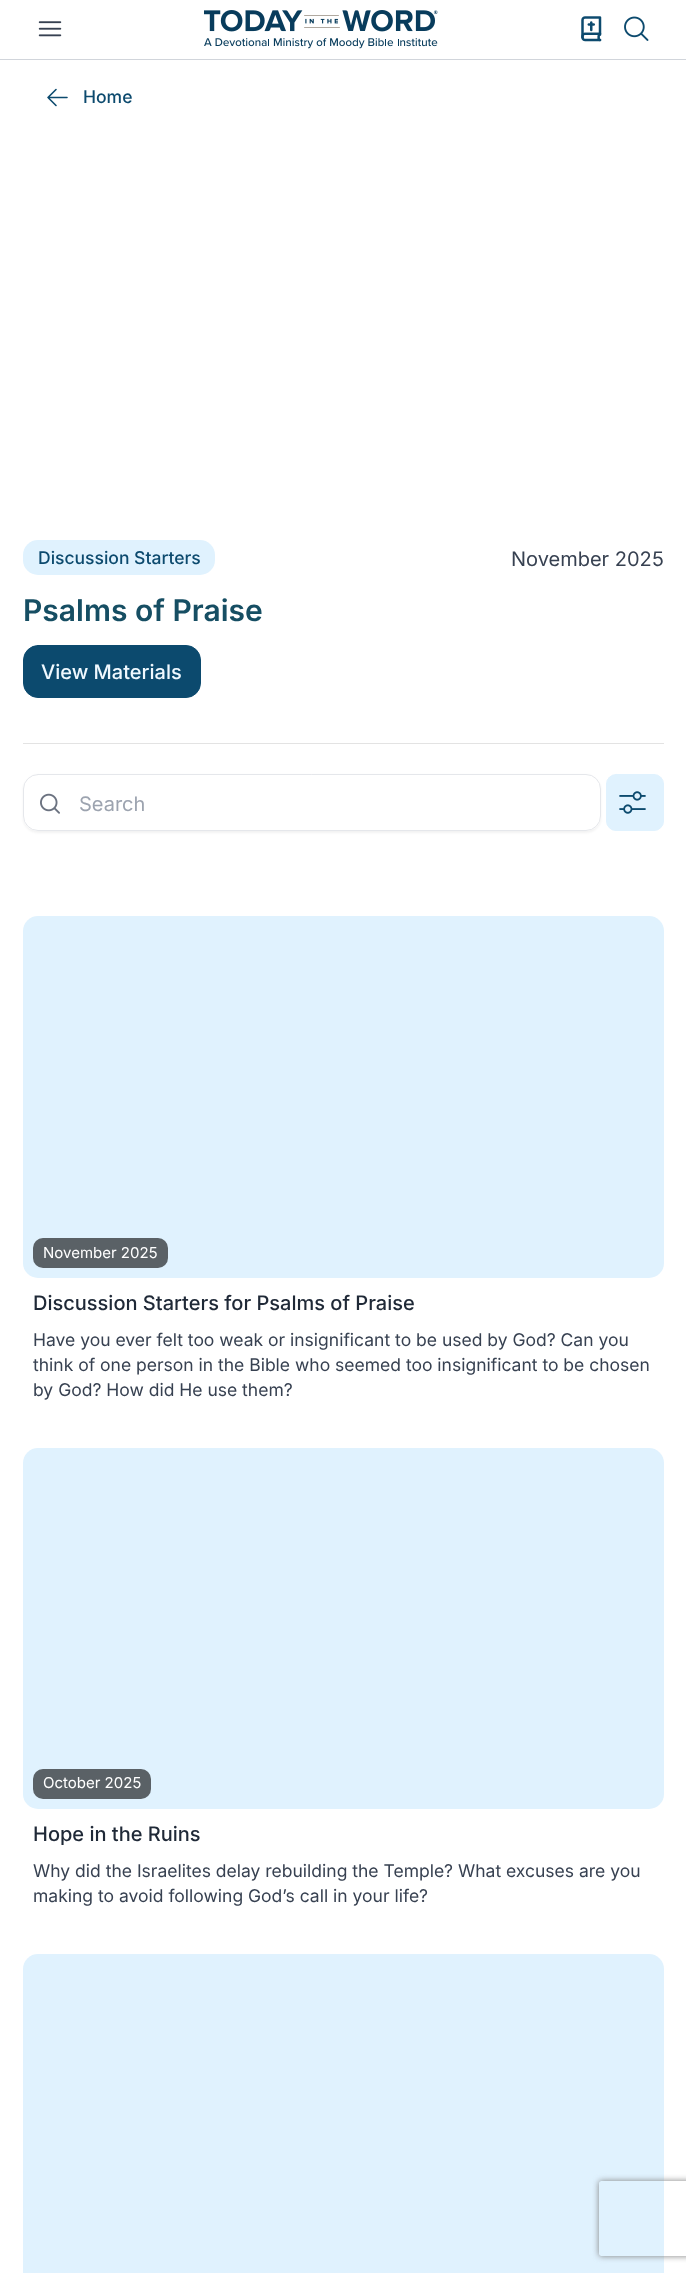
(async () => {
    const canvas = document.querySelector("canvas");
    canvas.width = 686;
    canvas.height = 2273;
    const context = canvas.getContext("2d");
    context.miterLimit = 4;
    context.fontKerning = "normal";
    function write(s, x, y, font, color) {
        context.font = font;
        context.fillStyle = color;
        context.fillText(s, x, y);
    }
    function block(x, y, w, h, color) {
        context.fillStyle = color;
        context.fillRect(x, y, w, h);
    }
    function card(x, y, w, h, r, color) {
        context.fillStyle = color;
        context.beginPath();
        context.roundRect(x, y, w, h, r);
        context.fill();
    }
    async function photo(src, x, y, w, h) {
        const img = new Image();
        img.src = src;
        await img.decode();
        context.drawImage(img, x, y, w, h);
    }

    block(0, 0, 686, 2273, "rgb(255, 255, 255)");
    block(0, 59, 686, 1, "rgb(209, 213, 219)");
    await photo("media/1.png", 38, 21, 24, 16);
    await photo("media/2.png", 204, 10, 234, 39);
    await photo("media/3.png", 581, 16, 21, 26);
    await photo("media/4.png", 624, 16, 25, 25);
    context.beginPath();
    context.moveTo(56, 105.5);
    context.lineTo(48, 97.5);
    context.moveTo(48, 97.5);
    context.lineTo(56, 89.5);
    context.moveTo(48, 97.5);
    context.lineTo(67, 97.5);
    context.strokeStyle = "rgb(12, 74, 110)";
    context.lineWidth = 1.6;
    context.lineCap = "round";
    context.lineJoin = "round";
    context.stroke();
    write("Home", 83, 103, "500 17.5px Inter", "rgb(12, 74, 110)");
    block(23, 743, 641, 1, "rgb(227, 227, 227)");
    card(23, 540, 192, 35, 15, "rgb(224, 242, 254)");
    write("Discussion Starters", 38, 564, "500 17.5px Inter", "rgb(12, 74, 110)");
    write("November 2025", 511, 566, "20px Inter", "rgb(55, 65, 81)");
    write("Psalms of Praise", 23, 621, "600 30px Inter", "rgb(22, 78, 99)");
    context.fillStyle = "rgb(12, 74, 110)";
    context.beginPath();
    context.roundRect(23.5, 645.5, 177, 52, 14.5);
    context.fill();
    context.lineWidth = 1;
    context.lineJoin = "miter";
    context.stroke();
    write("View Materials", 41, 679, "500 20px Inter", "rgb(240, 249, 255)");
    context.save();
    context.beginPath();
    context.moveTo(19, 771);
    context.lineTo(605, 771);
    context.lineTo(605, 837);
    context.lineTo(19, 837);
    context.closePath();
    context.moveTo(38, 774);
    context.lineTo(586, 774);
    context.bezierCurveTo(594.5, 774, 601, 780.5, 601, 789);
    context.lineTo(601, 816);
    context.bezierCurveTo(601, 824.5, 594.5, 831, 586, 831);
    context.lineTo(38, 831);
    context.bezierCurveTo(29.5, 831, 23, 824.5, 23, 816);
    context.lineTo(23, 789);
    context.bezierCurveTo(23, 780.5, 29.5, 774, 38, 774);
    context.closePath();
    context.clip("evenodd");
    context.fillStyle = "rgba(0, 0, 0, 0.05)";
    context.filter = "blur(1px)";
    context.beginPath();
    context.roundRect(23, 775, 578, 58, 15);
    context.fill();
    context.filter = "none";
    context.restore();
    context.beginPath();
    context.roundRect(23.5, 774.5, 577, 56, 14.5);
    context.strokeStyle = "rgb(229, 231, 235)";
    context.stroke();
    await photo("media/5.png", 40, 793, 20, 21);
    write("Search", 79, 811, "20px Inter", "rgb(156, 163, 175)");
    context.fillStyle = "rgb(224, 242, 254)";
    context.beginPath();
    context.roundRect(606.5, 774.5, 57, 56, 9.5);
    context.fill();
    context.strokeStyle = "rgb(224, 242, 254)";
    context.stroke();
    await photo("media/6.png", 619, 791, 27, 23);
    card(23, 916, 641, 362, 15, "rgb(224, 242, 254)");
    card(33, 1238, 135, 30, 10, "rgb(90, 97, 102)");
    write("November 2025", 43, 1258, "15px Inter", "rgb(255, 255, 255)");
    write("Discussion Starters for Psalms of Praise", 33, 1310, "500 20px Inter", "rgb(31, 41, 55)");
    write("Have you ever felt too weak or insignificant to be used by God? Can you", 33, 1346, "17.5px Inter", "rgb(55, 65, 81)");
    write("think of one person in the Bible who seemed too insignificant to be chosen", 33, 1371, "17.5px Inter", "rgb(55, 65, 81)");
    write("by God? How did He use them?", 33, 1396, "17.5px Inter", "rgb(55, 65, 81)");
    card(23, 1448, 641, 361, 15, "rgb(224, 242, 254)");
    card(33, 1769, 118, 30, 10, "rgb(90, 97, 102)");
    write("October 2025", 43, 1788, "15px Inter", "rgb(255, 255, 255)");
    write("Hope in the Ruins", 33, 1841, "500 20px Inter", "rgb(31, 41, 55)");
    write("Why did the Israelites delay rebuilding the Temple? What excuses are you", 33, 1877, "17.5px Inter", "rgb(55, 65, 81)");
    write("making to avoid following God’s call in your life?", 33, 1902, "17.5px Inter", "rgb(55, 65, 81)");
    card(23, 1954, 641, 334, 15, "rgb(224, 242, 254)");
    context.save();
    context.beginPath();
    context.moveTo(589, 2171);
    context.lineTo(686, 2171);
    context.lineTo(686, 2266);
    context.lineTo(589, 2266);
    context.closePath();
    context.moveTo(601.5, 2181);
    context.lineTo(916.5, 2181);
    context.bezierCurveTo(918, 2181, 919, 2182, 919, 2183.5);
    context.lineTo(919, 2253.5);
    context.bezierCurveTo(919, 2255, 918, 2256, 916.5, 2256);
    context.lineTo(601.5, 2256);
    context.bezierCurveTo(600, 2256, 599, 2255, 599, 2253.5);
    context.lineTo(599, 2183.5);
    context.bezierCurveTo(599, 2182, 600, 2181, 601.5, 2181);
    context.closePath();
    context.clip("evenodd");
    context.fillStyle = "rgb(128, 128, 128)";
    context.filter = "blur(3px)";
    context.beginPath();
    context.roundRect(599, 2181, 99, 75, 2.5);
    context.fill();
    context.filter = "none";
    context.restore();
})();
